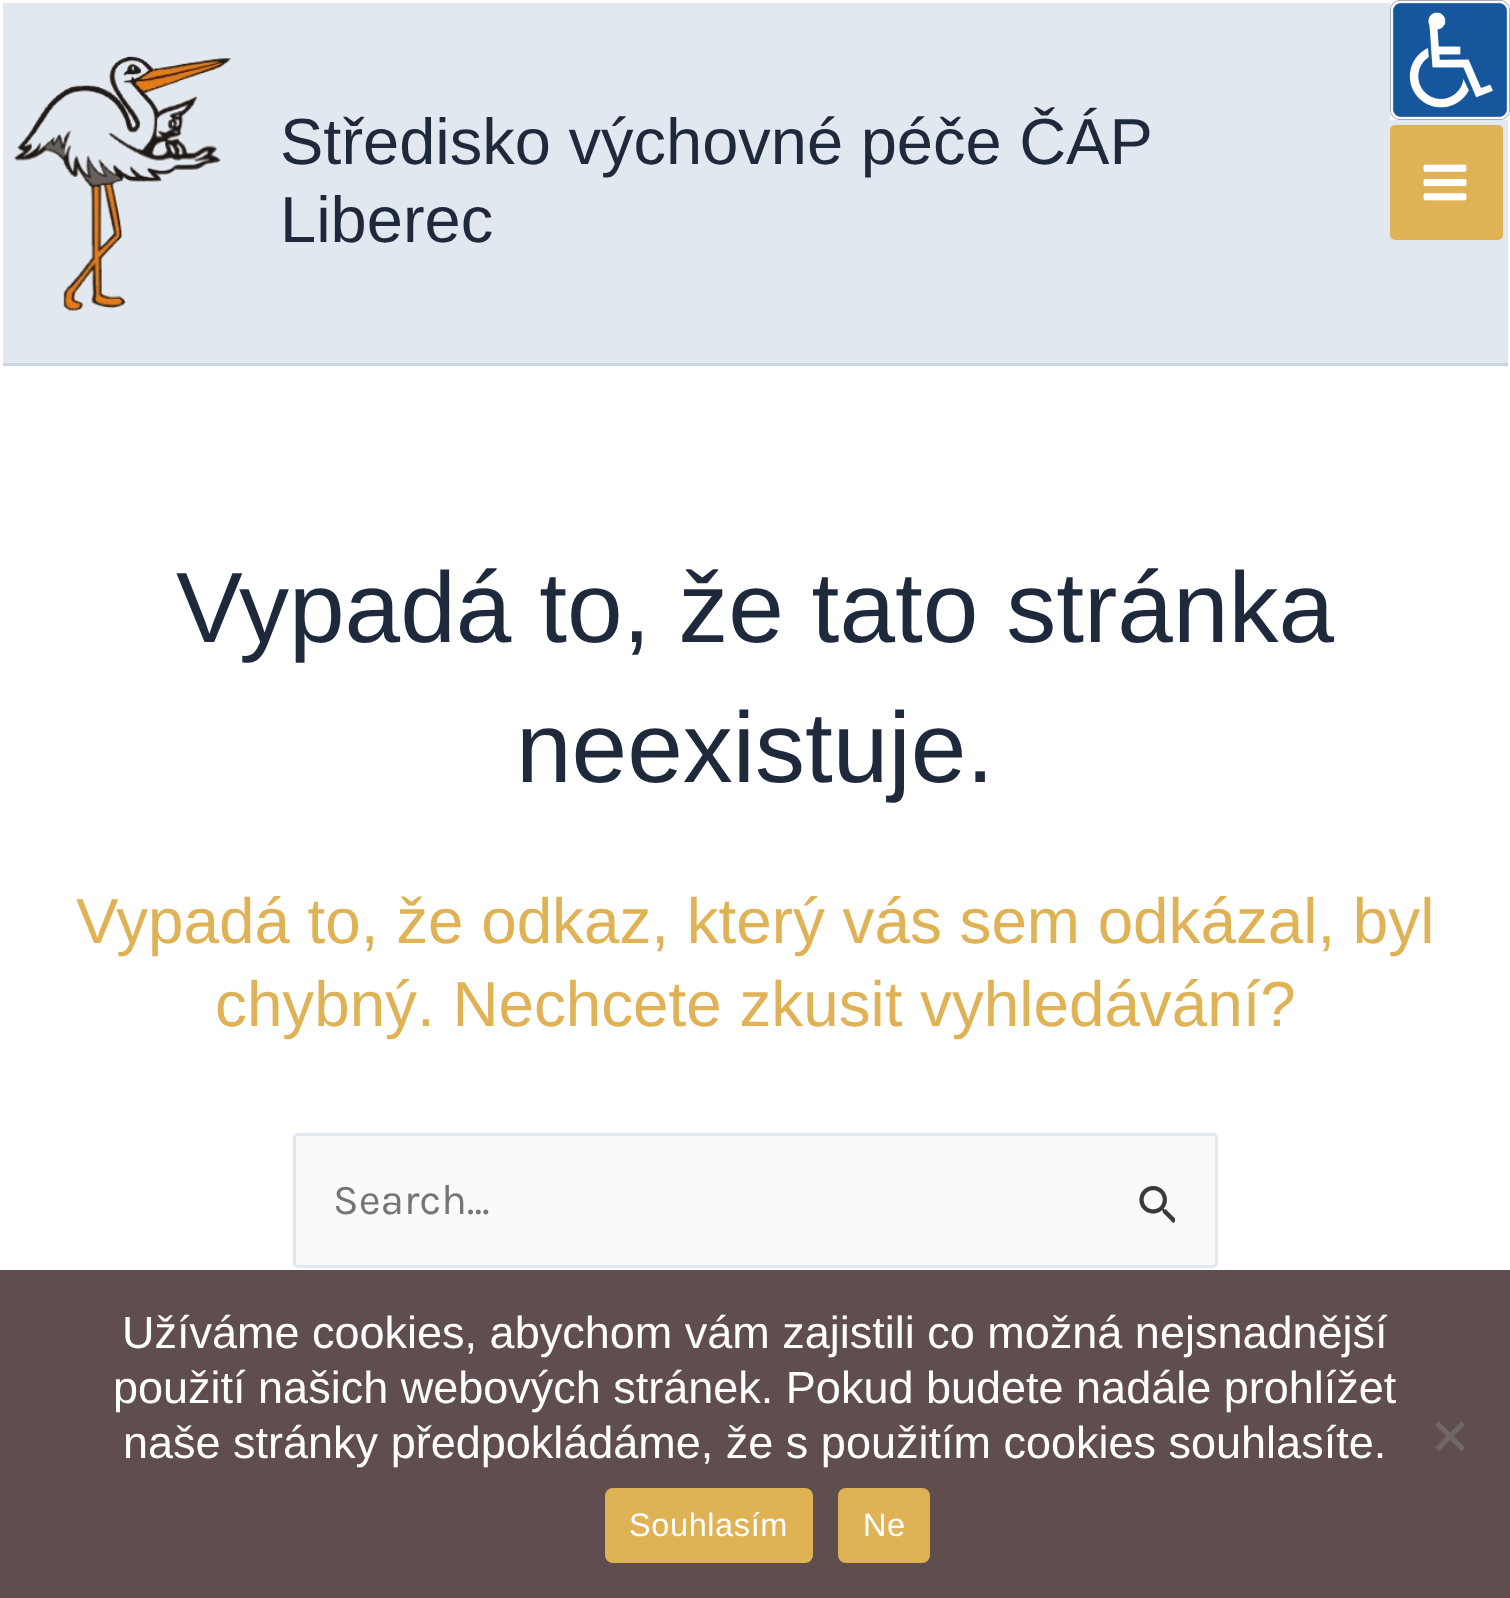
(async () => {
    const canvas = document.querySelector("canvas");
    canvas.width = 1510;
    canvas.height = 1598;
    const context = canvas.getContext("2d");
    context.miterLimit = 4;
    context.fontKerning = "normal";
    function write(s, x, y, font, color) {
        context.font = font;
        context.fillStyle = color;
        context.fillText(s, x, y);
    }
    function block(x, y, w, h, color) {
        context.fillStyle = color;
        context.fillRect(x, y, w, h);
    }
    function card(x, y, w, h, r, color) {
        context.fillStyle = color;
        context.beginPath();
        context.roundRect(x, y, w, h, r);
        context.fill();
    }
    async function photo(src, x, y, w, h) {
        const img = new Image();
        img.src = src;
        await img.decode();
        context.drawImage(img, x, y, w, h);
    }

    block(0, 0, 1510, 1598, "rgb(255, 255, 255)");
    block(3, 3, 1505, 360, "rgb(226, 232, 240)");
    block(1390, 3, 118, 117, "rgb(255, 255, 255)");
    await photo("media/1.png", 1390, 0, 120, 120);
    block(3, 363, 1505, 3, "rgb(203, 213, 225)");
    await photo("media/2.png", 14, 56, 217, 256);
    context.wordSpacing = "-0.5px";
    write("Středisko výchovné péče ČÁP", 280, 164, "65px Liberation Sans", "rgb(30, 41, 59)");
    context.wordSpacing = "0px";
    write("Liberec", 280, 242, "65px Liberation Sans", "rgb(30, 41, 59)");
    card(1390, 125, 113, 115, 5, "rgb(223, 179, 85)");
    await photo("media/3.png", 1423, 164, 44, 37);
    write("Vypadá to, že tato stránka", 176, 642, "100px Liberation Sans", "rgb(30, 41, 59)");
    write("neexistuje.", 516, 782, "100px Liberation Sans", "rgb(30, 41, 59)");
    write("Vypadá to, že odkaz, který vás sem odkázal, byl", 76, 943, "63.75px Liberation Sans", "rgb(223, 179, 85)");
    write("chybný. Nechcete zkusit vyhledávání?", 215, 1026, "63.75px Liberation Sans", "rgb(223, 179, 85)");
    context.fillStyle = "rgb(250, 250, 250)";
    context.beginPath();
    context.roundRect(294.5, 1134.5, 922, 132, 3.5);
    context.fill();
    context.strokeStyle = "rgb(226, 232, 240)";
    context.lineWidth = 3;
    context.stroke();
    write("Search...", 333, 1214, "42.5px Karla", "rgb(117, 117, 117)");
    await photo("media/4.png", 1139, 1185, 36, 38);
    block(0, 1270, 1510, 328, "rgb(96, 77, 77)");
    write("Užíváme cookies, abychom vám zajistili co možná nejsnadnější", 122, 1348, "45px Liberation Sans", "rgb(255, 255, 255)");
    write("použití našich webových stránek. Pokud budete nadále prohlížet", 113, 1403, "45px Liberation Sans", "rgb(255, 255, 255)");
    write("naše stránky předpokládáme, že s použitím cookies souhlasíte.", 123, 1458, "45px Liberation Sans", "rgb(255, 255, 255)");
    context.fillStyle = "rgb(112, 103, 103)";
    context.beginPath();
    context.moveTo(1461.5, 1421);
    context.lineTo(1465, 1425);
    context.lineTo(1438.5, 1451.5);
    context.lineTo(1435, 1447.5);
    context.closePath();
    context.fill();
    context.beginPath();
    context.moveTo(1435, 1425);
    context.lineTo(1438.5, 1421);
    context.lineTo(1465, 1447.5);
    context.lineTo(1461.5, 1451.5);
    context.closePath();
    context.fill();
    card(605, 1488, 208, 75, 8, "rgb(223, 179, 85)");
    context.letterSpacing = "0.6px";
    write("Souhlasím", 629, 1536, "32.5px Liberation Sans", "rgb(255, 255, 255)");
    card(838, 1488, 92, 75, 8, "rgb(223, 179, 85)");
    write("Ne", 863, 1536, "32.5px Liberation Sans", "rgb(255, 255, 255)");
})();
